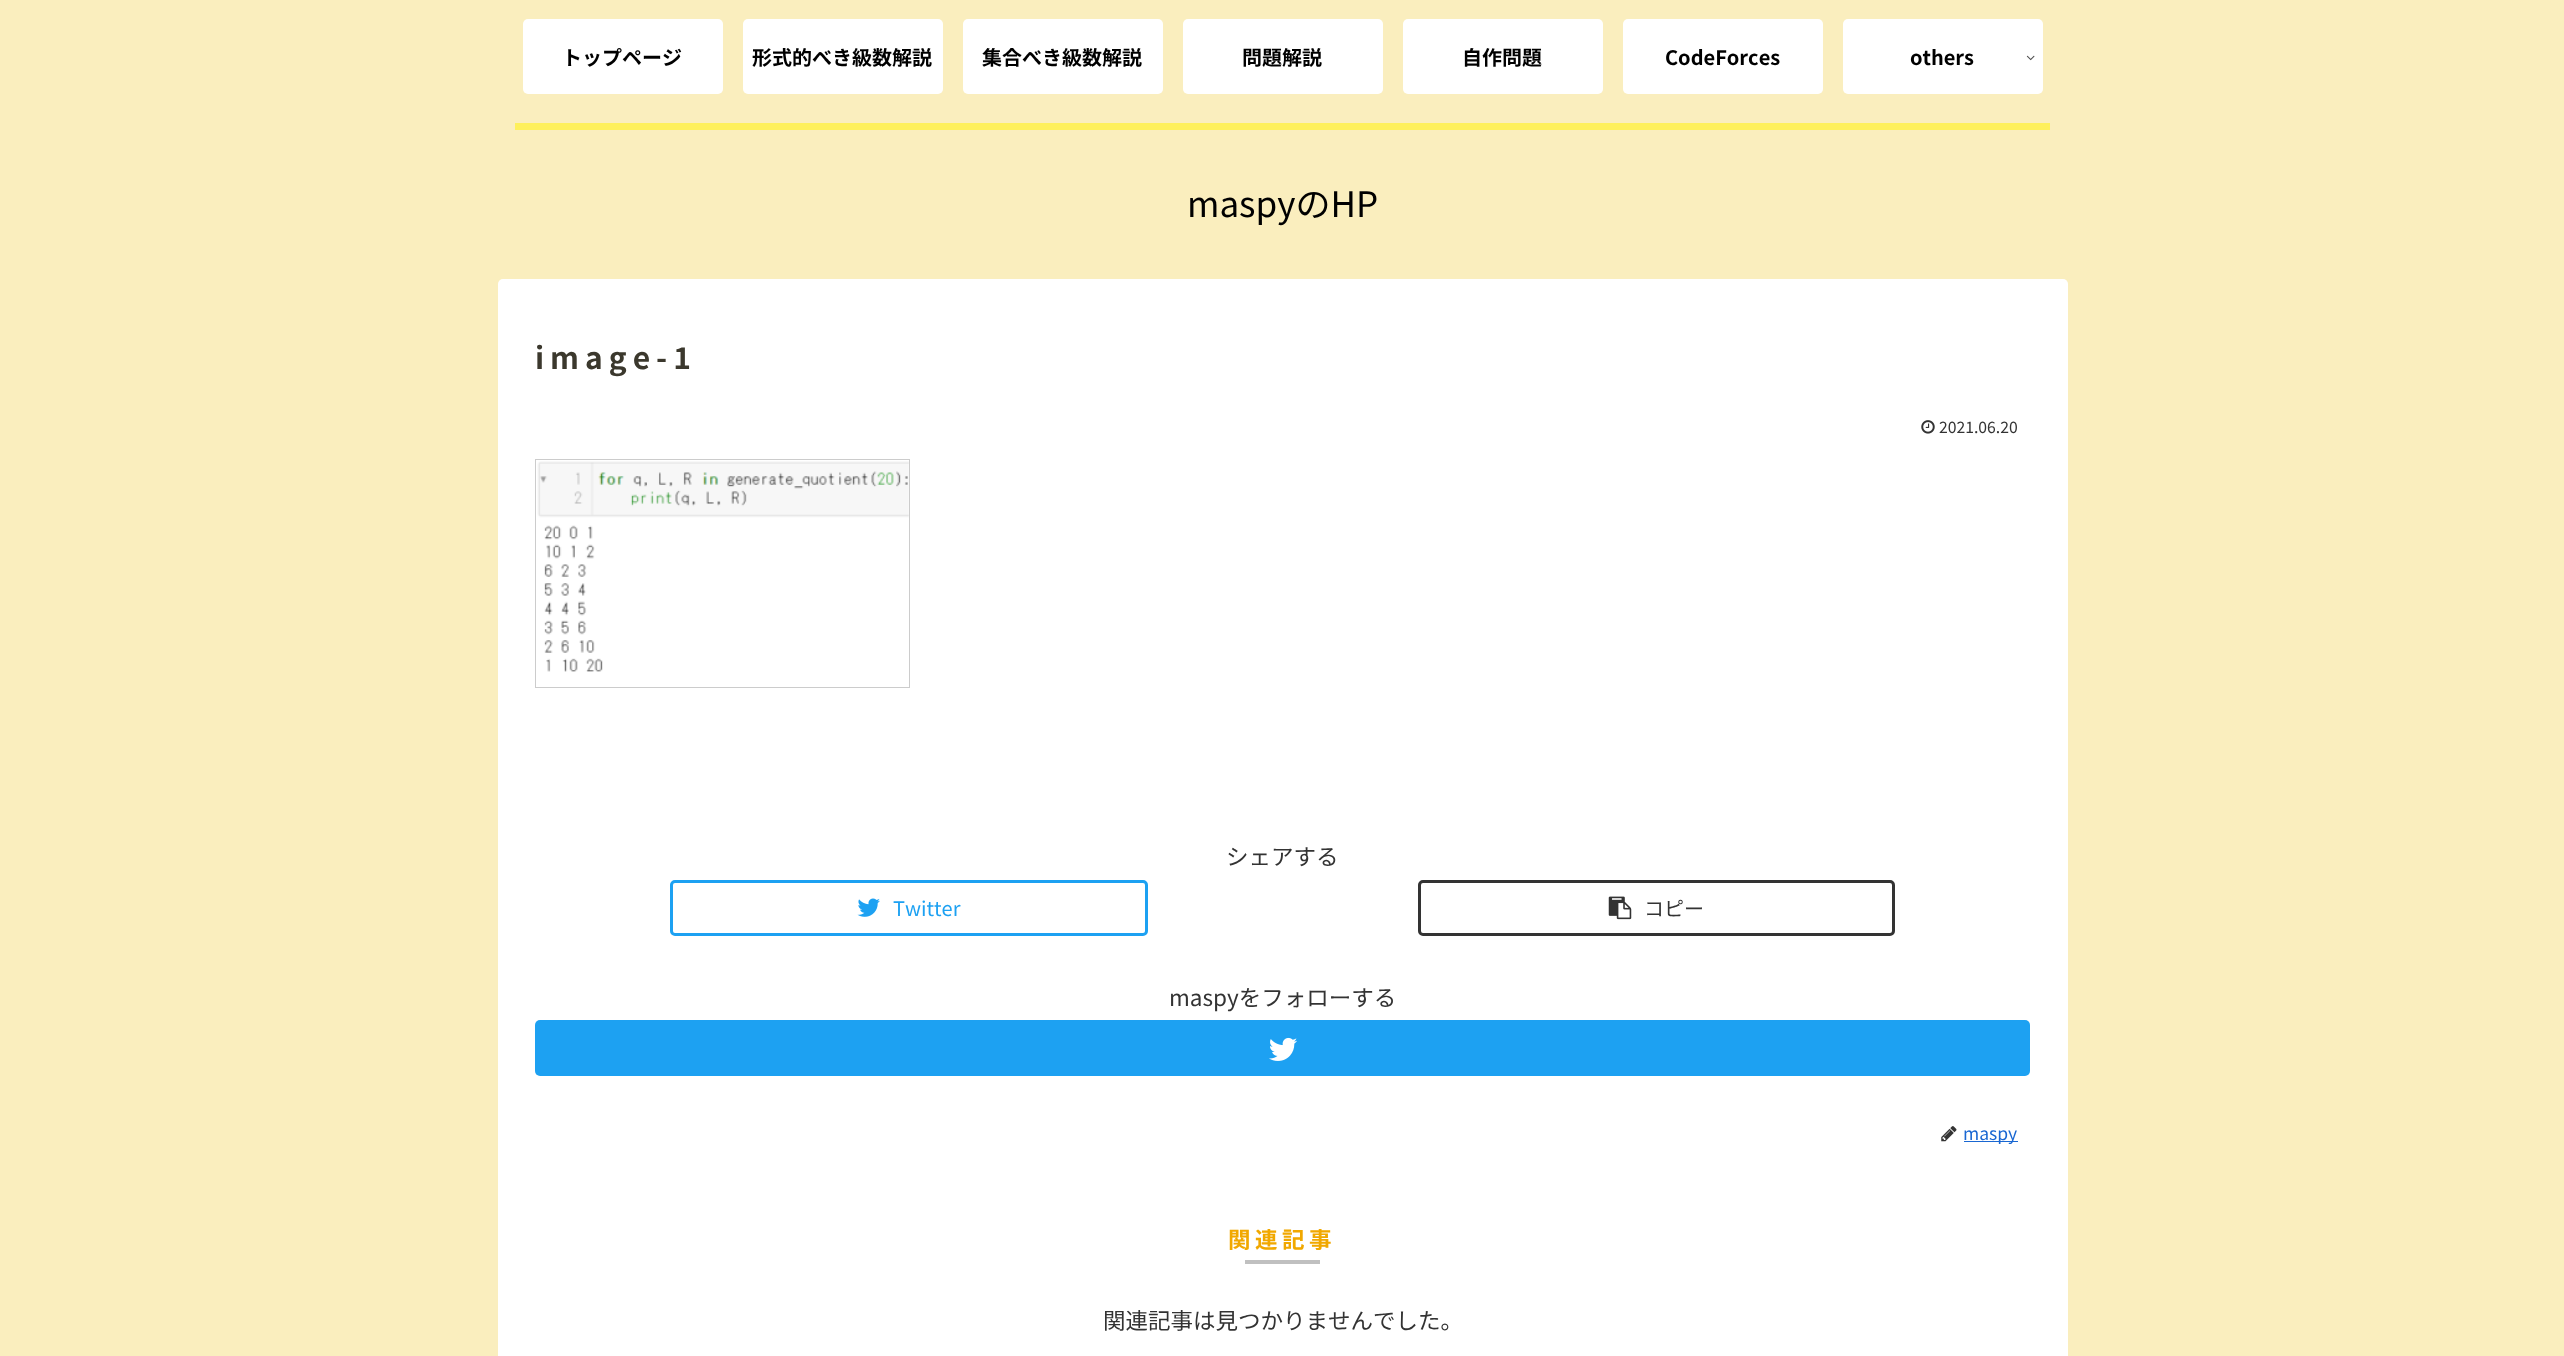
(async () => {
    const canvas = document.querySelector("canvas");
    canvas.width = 2564;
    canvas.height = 1356;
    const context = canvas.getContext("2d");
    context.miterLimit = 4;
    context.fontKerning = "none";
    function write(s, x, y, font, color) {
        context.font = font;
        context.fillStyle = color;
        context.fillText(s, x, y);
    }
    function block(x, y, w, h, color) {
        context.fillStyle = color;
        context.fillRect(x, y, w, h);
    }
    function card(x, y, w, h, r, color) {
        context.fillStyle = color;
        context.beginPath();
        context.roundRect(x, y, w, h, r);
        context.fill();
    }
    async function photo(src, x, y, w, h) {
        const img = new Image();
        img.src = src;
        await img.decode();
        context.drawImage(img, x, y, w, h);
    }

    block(0, 0, 2564, 1356, "rgb(250, 238, 190)");
    card(523, 19, 200, 75, 5, "rgb(255, 255, 255)");
    write("トップページ", 562, 65, "bold 20px Noto Sans JP", "rgb(0, 0, 0)");
    card(743, 19, 200, 75, 5, "rgb(255, 255, 255)");
    write("形式的べき級数解説", 752, 65, "bold 20px Noto Sans JP", "rgb(0, 0, 0)");
    card(963, 19, 200, 75, 5, "rgb(255, 255, 255)");
    write("集合べき級数解説", 982, 65, "bold 20px Noto Sans JP", "rgb(0, 0, 0)");
    card(1183, 19, 200, 75, 5, "rgb(255, 255, 255)");
    write("問題解説", 1242, 65, "bold 20px Noto Sans JP", "rgb(0, 0, 0)");
    card(1403, 19, 200, 75, 5, "rgb(255, 255, 255)");
    write("自作問題", 1462, 65, "bold 20px Noto Sans JP", "rgb(0, 0, 0)");
    card(1623, 19, 200, 75, 5, "rgb(255, 255, 255)");
    write("CodeForces", 1665, 65, "bold 20px Noto Sans JP", "rgb(0, 0, 0)");
    card(1843, 19, 200, 75, 5, "rgb(255, 255, 255)");
    write("others", 1910, 65, "bold 20px Noto Sans JP", "rgb(0, 0, 0)");
    await photo("media/1.png", 2026, 55, 9, 6);
    block(515, 123, 1535, 7, "rgb(254, 240, 92)");
    write("maspyのHP", 1187, 217, "35px Noto Sans JP", "rgb(0, 0, 0)");
    card(498, 279, 1570, 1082, 5, "rgb(255, 255, 255)");
    context.letterSpacing = "6px";
    write("image-1", 535, 369, "bold 30px Noto Sans JP", "rgb(59, 56, 45)");
    await photo("media/2.png", 1921, 420, 14, 14);
    context.letterSpacing = "0px";
    write("2021.06.20", 1939, 433, "15.75px Noto Sans JP", "rgb(51, 51, 51)");
    context.strokeStyle = "rgb(204, 204, 204)";
    context.strokeRect(535.5, 459.5, 374, 228);
    await photo("media/3.png", 537, 461, 372, 211);
    write("シェアする", 1226, 865, "22.5px Noto Sans JP", "rgb(51, 51, 51)");
    context.beginPath();
    context.roundRect(671.5, 881.5, 475, 53, 3.5);
    context.strokeStyle = "rgb(29, 161, 242)";
    context.lineWidth = 3;
    context.stroke();
    await photo("media/4.png", 857, 898, 23, 19);
    write("Twitter", 893, 916, "20px Noto Sans JP", "rgb(29, 161, 242)");
    context.beginPath();
    context.roundRect(1419.5, 881.5, 474, 53, 3.5);
    context.strokeStyle = "rgb(51, 51, 51)";
    context.stroke();
    await photo("media/5.png", 1608, 896, 24, 24);
    write("コピー", 1644, 916, "20px Noto Sans JP", "rgb(51, 51, 51)");
    write("maspyをフォローする", 1169, 1006, "22.5px Noto Sans JP", "rgb(51, 51, 51)");
    card(535, 1020, 1495, 56, 5, "rgb(29, 161, 242)");
    await photo("media/6.png", 1269, 1037, 28, 24);
    await photo("media/7.png", 1941, 1126, 16, 16);
    block(1964, 1141, 54, 1, "rgb(25, 103, 210)");
    write("maspy", 1963, 1140, "17.5px Noto Sans JP", "rgb(25, 103, 210)");
    context.letterSpacing = "4.5px";
    write("関連記事", 1228, 1248, "bold 22.5px Noto Sans JP", "rgb(241, 168, 0)");
    block(1245, 1260, 75, 4, "rgb(192, 192, 192)");
    context.letterSpacing = "0px";
    write("関連記事は見つかりませんでした。", 1103, 1329, "22.5px Noto Sans JP", "rgb(51, 51, 51)");
})();
